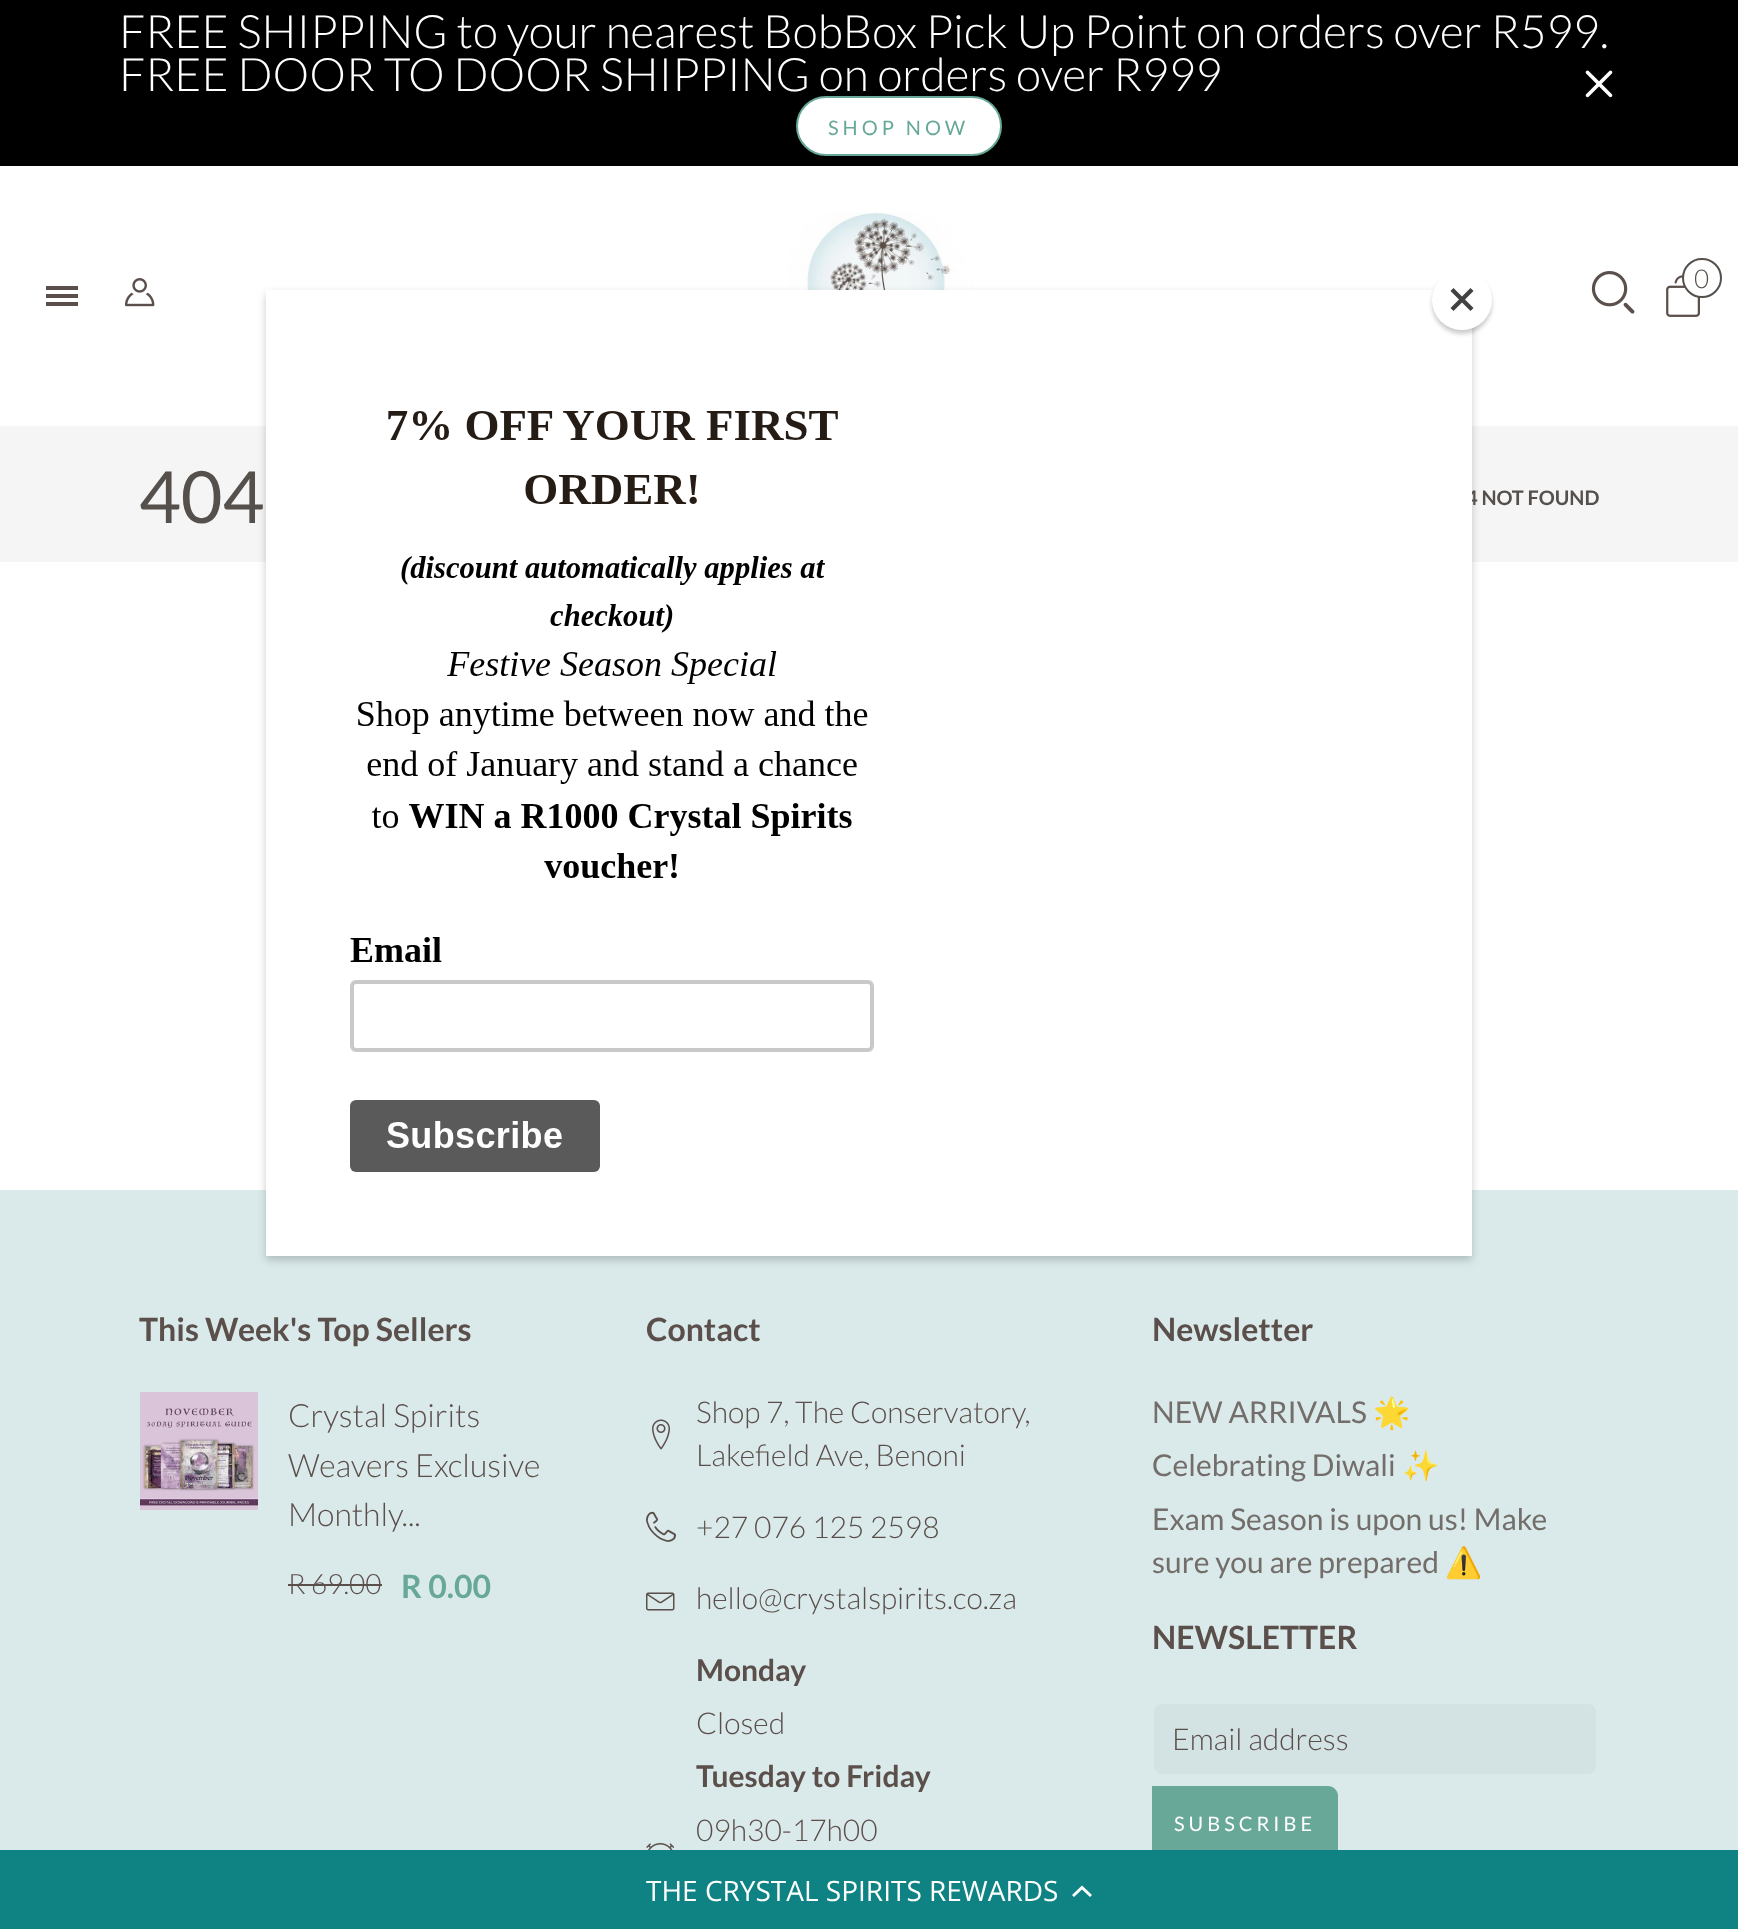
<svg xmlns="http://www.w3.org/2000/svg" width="1738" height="1929">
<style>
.a{font:300 46px Lato;fill:#fff}
.b{font:20px Lato;letter-spacing:4px;fill:#68a899}
.c{font:300 26px Lato;fill:#55504b}
.d{font:72px Lato;fill:#55504b}
.e{font:bold 20px Lato;fill:#55504b}
.f{font:bold 32px Lato;fill:#5b4f4b}
.g{font:300 32px Lato;fill:#5b4f4b}
.h{font:300 28px Lato;fill:#5b4f4b}
.i{font:bold 32px Lato;fill:#68a899}
.j{font:300 30px Lato;fill:#5b4f4b}
.k{font:bold 30px Lato;fill:#5b4f4b}
.l{font:30px Lato;fill:#746e6b}
.m{font:30px Noto Color Emoji;fill:#746e6b}
.n{font:20px Lato;letter-spacing:4px;fill:#fff}
.o{font:28px Open Sans;fill:#fff}
</style>
<rect width="100%" height="100%" fill="#fff"/>
<path fill="#000" d="M0 0h1738v166H0z"/>
<image href="1.png" x="1585" y="70" width="28" height="28"/>
<rect fill="#fff" stroke="#68a899" stroke-width="2" x="797" y="97" width="204" height="58" rx="29"/>
<path fill="#f7f6f6" d="M0 426h1738v2H0z"/>
<image href="5.png" x="770" y="212" width="212" height="78"/>
<path fill="#f5f5f5" d="M0 428h1738v134H0z"/>
<path fill="#daeaeb" d="M0 1190h1738v660H0z"/>
<path fill="#00000033" filter="blur(4px)" d="M266 294h1206v966H266z"/>
<image href="3.png" x="46" y="286" width="32" height="20"/>
<image href="4.png" x="124" y="278" width="31" height="29"/>
<image href="6.png" x="1591" y="271" width="44" height="43"/>
<image href="7.png" x="1666" y="275" width="34" height="42"/>
<circle fill="#fff" stroke="#55504b" stroke-width="2" cx="1702" cy="278" r="19"/>
<image href="8.png" x="140" y="1392" width="118" height="118"/>
<path fill="#5b4f4b" d="M288 1584h94v2H288z"/>
<image href="9.png" x="652" y="1419" width="18" height="31"/>
<image href="10.png" x="646" y="1511" width="30" height="31"/>
<image href="11.png" x="646" y="1592" width="29" height="19"/>
<image href="12.png" x="646" y="1843" width="29" height="7"/>
<rect fill="#d3e2e3" stroke="#daeaeb" stroke-width="2" x="1153" y="1703" width="444" height="72" rx="9"/>
<path fill="#68a899" d="M1152 1786h176c5.5 0 10 4.5 10 10v54c0 5.5-4.5 10-10 10h-176z"/>
<path fill="#0f8383" d="M0 1850h1738v79H0z"/>
<path fill="#fff" d="M1082 1889.5l-8 7.5l-2-2l10-9.5l10 9.5l-2 2z"/>
<text class="a" x="119" y="48">FREE SHIPPING to your nearest BobBox Pick Up Point on orders over R599.</text>
<text class="a" x="119" y="91">FREE DOOR TO DOOR SHIPPING on orders over R999</text>
<text class="b" x="828" y="135">SHOP NOW</text>
<text class="c" x="1694" y="288">0</text>
<text class="d" x="139" y="523">404</text>
<text class="e" x="1466" y="505">4 NOT FOUND</text>
<image href="2.png" x="266" y="290" width="1206" height="966"/>
<rect fill="#00000033" filter="blur(2px)" x="1432" y="274" width="60" height="60" rx="30"/>
<circle fill="#fff" cx="1462" cy="300" r="30"/>
<path fill="#414141" d="M1470.5 288l3 3l-20 20l-3-3z"/>
<path fill="#414141" d="M1450.5 291l3-3l20 20l-3 3z"/>
<text class="f" x="139" y="1341">This Week's Top Sellers</text>
<text class="g" x="288" y="1427">Crystal Spirits</text>
<text class="g" x="288" y="1477">Weavers Exclusive</text>
<text class="g" x="288" y="1526">Monthly...</text>
<text class="h" x="288" y="1594">R 69.00</text>
<text class="i" x="401" y="1598">R 0.00</text>
<text class="f" x="646" y="1341">Contact</text>
<text class="j" x="696" y="1423">Shop 7, The Conservatory,</text>
<text class="j" x="696" y="1466">Lakefield Ave, Benoni</text>
<text class="j" x="696" y="1538">+27 076 125 2598</text>
<text class="j" x="696" y="1609">hello@crystalspirits.co.za</text>
<text class="k" x="696" y="1681">Monday</text>
<text class="j" x="696" y="1734">Closed</text>
<text class="k" x="696" y="1787">Tuesday to Friday</text>
<text class="j" x="696" y="1841">09h30-17h00</text>
<text class="f" x="1152" y="1341">Newsletter</text>
<text class="l" x="1152" y="1423">NEW ARRIVALS</text>
<text class="m" x="1373" y="1423">🌟</text>
<text class="l" x="1152" y="1476">Celebrating Diwali</text>
<text class="m" x="1402" y="1476">✨</text>
<text class="l" x="1152" y="1530">Exam Season is upon us! Make</text>
<text class="l" x="1152" y="1573">sure you are prepared</text>
<text class="m" x="1445" y="1573">⚠️</text>
<text class="f" x="1152" y="1649">NEWSLETTER</text>
<text class="j" x="1172" y="1750">Email address</text>
<text class="n" x="1174" y="1831">SUBSCRIBE</text>
<text class="o" x="646" y="1901">THE CRYSTAL SPIRITS REWARDS</text>
</svg>
